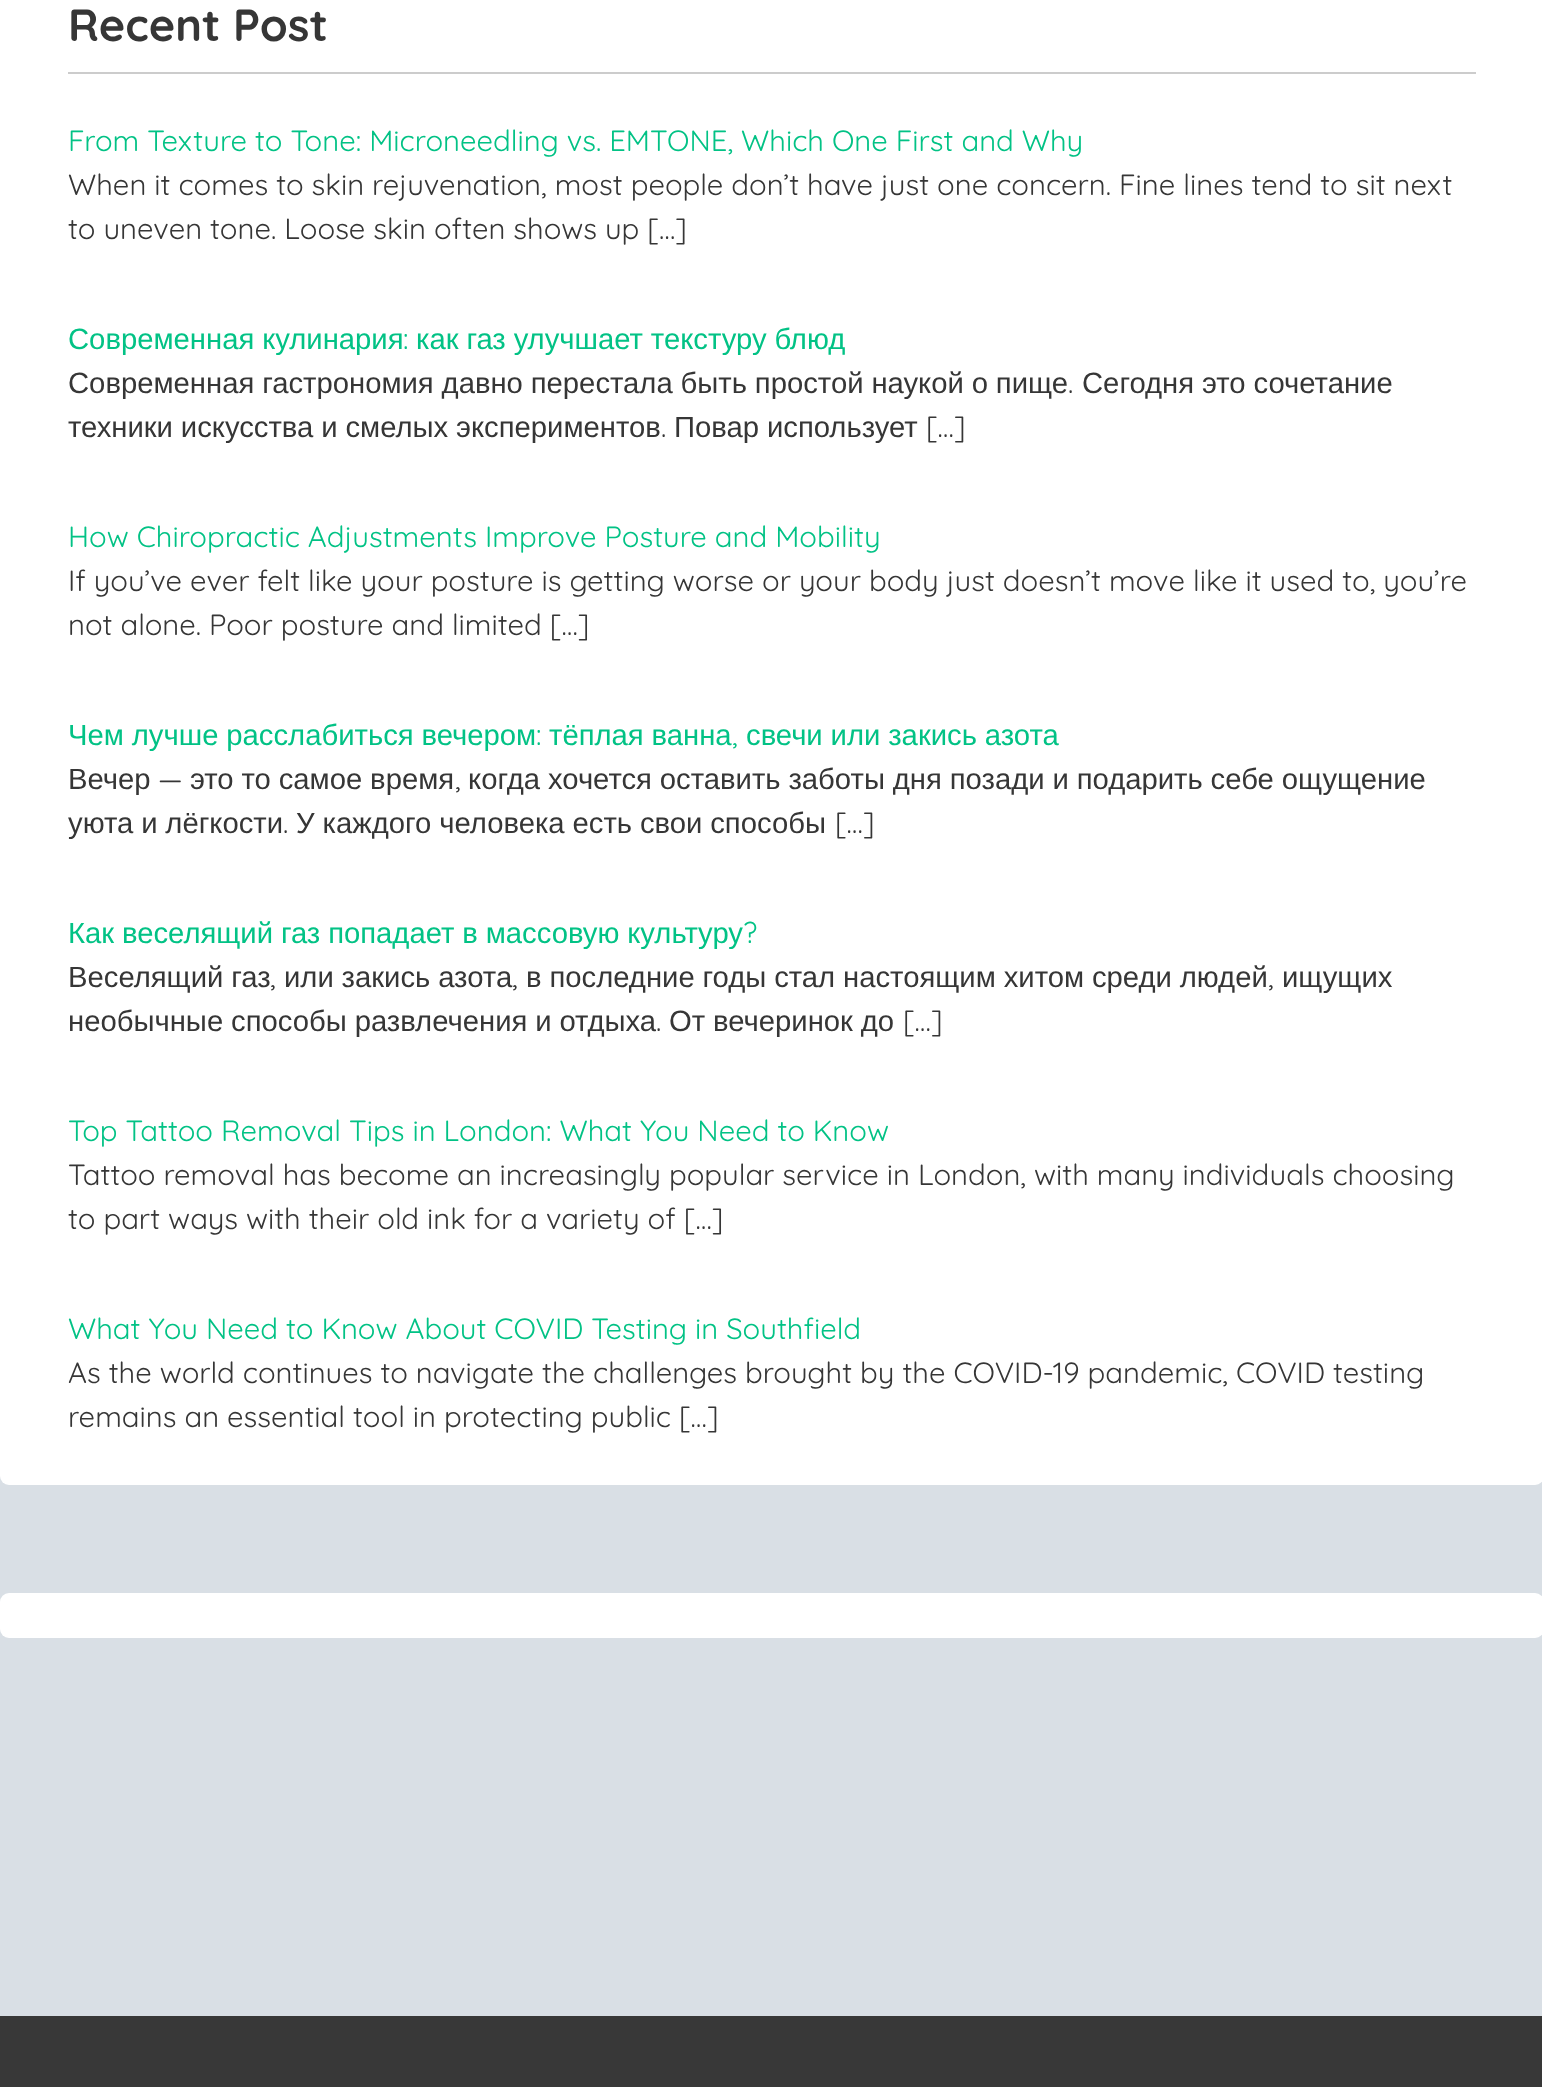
<svg xmlns="http://www.w3.org/2000/svg" width="1542" height="2087">
<style>
.a{font:bold 45px Quicksand;fill:#363636}
.b{font:29.25px Quicksand;fill:#02c285}
.c{font:29.25px Quicksand;fill:#363636}
.d{font:29.25px Liberation Sans;fill:#02c285}
.e{font:29.25px Liberation Sans;fill:#363636}
</style>
<rect width="100%" height="100%" fill="#d9dfe5"/>
<rect fill="#fff" y="-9" width="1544" height="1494" rx="9"/>
<path fill="#ccc" d="M68 72h1408v2H68z"/>
<rect fill="#fff" y="1593" width="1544" height="45" rx="9"/>
<path fill="#383838" d="M0 2016h1542v71H0z"/>
<text class="a" x="68" y="41">Recent Post</text>
<text class="b" x="68" y="151">From Texture to Tone: Microneedling vs. EMTONE, Which One First and Why</text>
<text class="c" x="68" y="195">When it comes to skin rejuvenation, most people don’t have just one concern. Fine lines tend to sit next</text>
<text class="c" x="68" y="239">to uneven tone. Loose skin often shows up […]</text>
<text class="d" x="68" y="349" word-spacing="-0.25">Современная кулинария</text>
<text class="b" x="403" y="349">:</text>
<text class="d" x="416" y="349" word-spacing="-0.25">как газ улучшает текстуру блюд</text>
<text class="e" x="68" y="393" word-spacing="-0.25">Современная гастрономия давно перестала быть простой наукой о пище</text>
<text class="c" x="1068" y="393">.</text>
<text class="e" x="1082" y="393" word-spacing="-0.25">Сегодня это сочетание</text>
<text class="e" x="68" y="437" word-spacing="-0.25">техники искусства и смелых экспериментов</text>
<text class="c" x="661" y="437">.</text>
<text class="e" x="674" y="437" word-spacing="-0.25">Повар использует</text>
<text class="c" x="926" y="437">[…]</text>
<text class="b" x="68" y="547">How Chiropractic Adjustments Improve Posture and Mobility</text>
<text class="c" x="68" y="591">If you’ve ever felt like your posture is getting worse or your body just doesn’t move like it used to, you’re</text>
<text class="c" x="68" y="635">not alone. Poor posture and limited […]</text>
<text class="d" x="68" y="745" word-spacing="-0.25">Чем лучше расслабиться вечером</text>
<text class="b" x="536" y="745">:</text>
<text class="d" x="549" y="745" word-spacing="-0.25">тёплая ванна</text>
<text class="b" x="732" y="745">,</text>
<text class="d" x="746" y="745" word-spacing="-0.25">свечи или закись азота</text>
<text class="e" x="68" y="789">Вечер</text>
<text class="c" x="158" y="789">—</text>
<text class="e" x="190" y="789" word-spacing="-0.25">это то самое время</text>
<text class="e" x="468" y="789" word-spacing="-0.25">когда хочется оставить заботы дня позади и подарить себе ощущение</text>
<text class="c" x="455" y="789">,</text>
<text class="e" x="68" y="833" word-spacing="-0.25">уюта и лёгкости</text>
<text class="c" x="283" y="833">.</text>
<text class="e" x="296" y="833" word-spacing="-0.25">У каждого человека есть свои способы</text>
<text class="c" x="835" y="833">[…]</text>
<text class="d" x="68" y="943" word-spacing="-0.25">Как веселящий газ попадает в массовую культуру</text>
<text class="b" x="743" y="943">?</text>
<text class="e" x="68" y="987" word-spacing="-0.25">Веселящий газ</text>
<text class="c" x="270" y="987">,</text>
<text class="e" x="284" y="987" word-spacing="-0.25">или закись азота</text>
<text class="c" x="512" y="987">,</text>
<text class="e" x="526" y="987" word-spacing="-0.25">в последние годы стал настоящим хитом среди людей</text>
<text class="c" x="1268" y="987">,</text>
<text class="e" x="1282" y="987">ищущих</text>
<text class="e" x="68" y="1031" word-spacing="-0.25">необычные способы развлечения и отдыха</text>
<text class="c" x="656" y="1031">.</text>
<text class="e" x="669" y="1031" word-spacing="-0.25">От вечеринок до</text>
<text class="c" x="903" y="1031">[…]</text>
<text class="b" x="68" y="1141">Top Tattoo Removal Tips in London: What You Need to Know</text>
<text class="c" x="68" y="1185">Tattoo removal has become an increasingly popular service in London, with many individuals choosing</text>
<text class="c" x="68" y="1229">to part ways with their old ink for a variety of […]</text>
<text class="b" x="68" y="1339">What You Need to Know About COVID Testing in Southfield</text>
<text class="c" x="68" y="1383">As the world continues to navigate the challenges brought by the COVID-19 pandemic, COVID testing</text>
<text class="c" x="68" y="1427">remains an essential tool in protecting public […]</text>
</svg>
